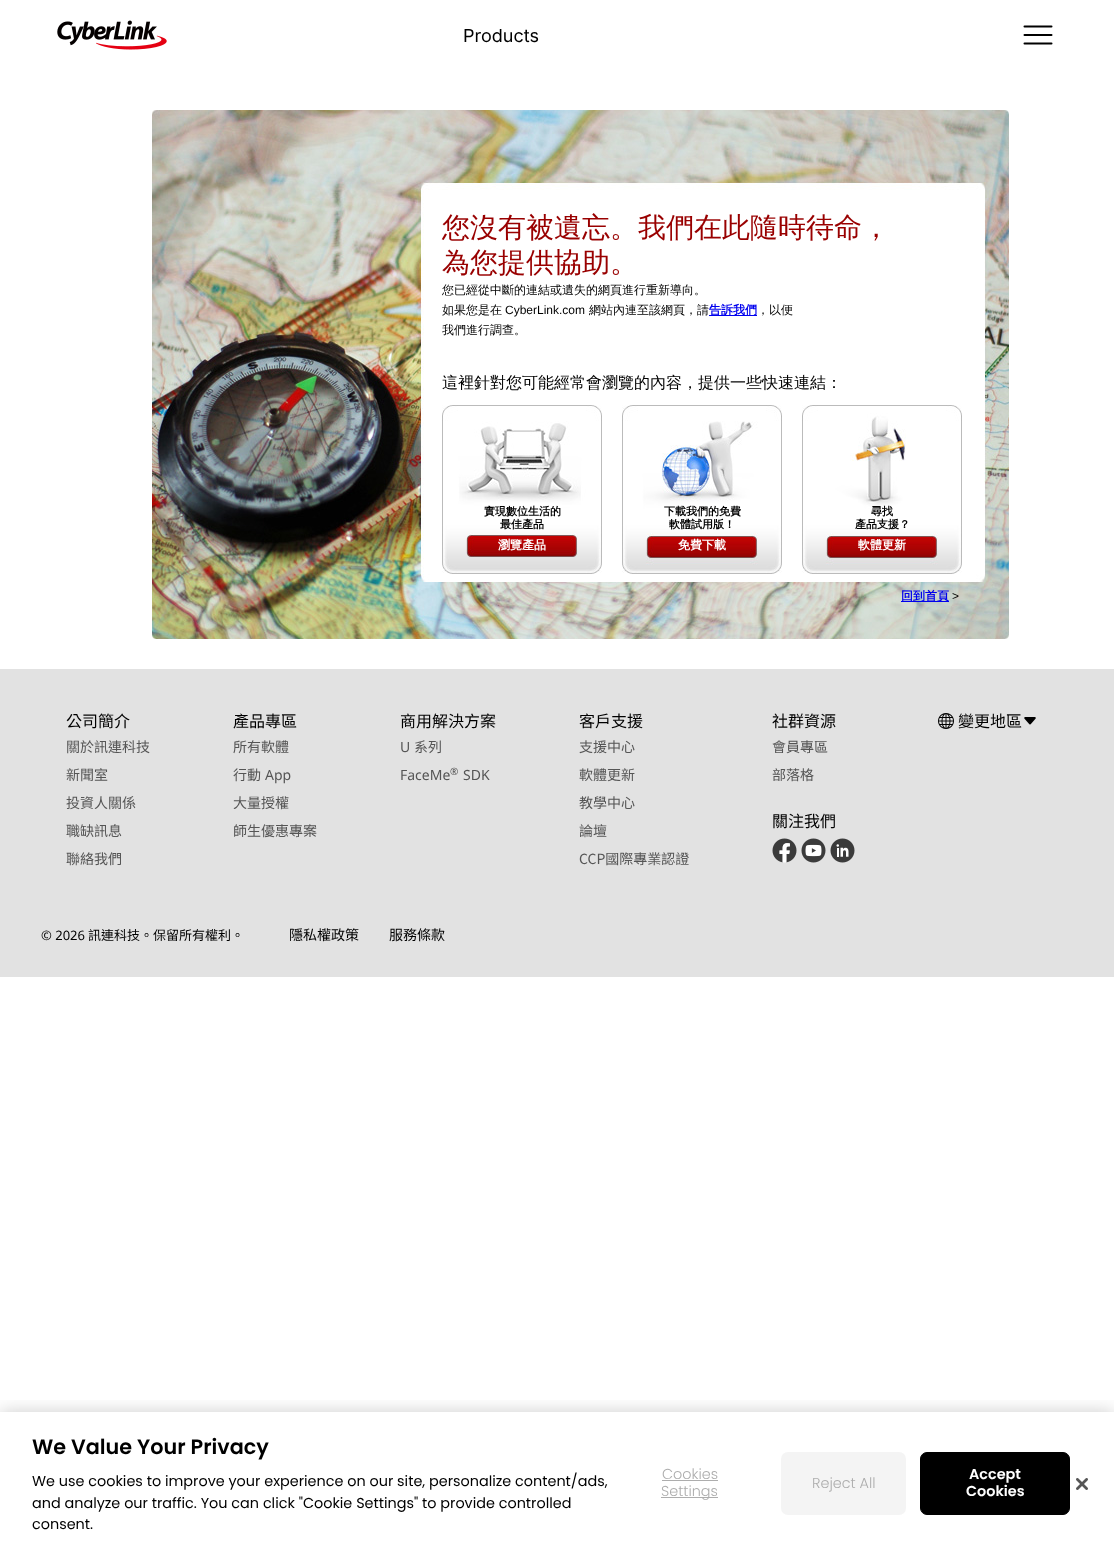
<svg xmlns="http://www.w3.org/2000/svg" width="1114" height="1556">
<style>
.a{font:18px Inter;fill:#000}
.b{font:500 28px WenQuanYi Zen Hei;fill:#900}
.c{font:500 12px WenQuanYi Zen Hei;fill:#000}
.d{font:12px Liberation Sans;fill:#000}
.e{font:bold 12px WenQuanYi Zen Hei;fill:#00e}
.f{font:500 16px WenQuanYi Zen Hei;fill:#000}
.g{font:bold 11px WenQuanYi Zen Hei;fill:#000}
.h{font:bold 12px WenQuanYi Zen Hei;fill:#fff}
.i{font:16px Noto Sans TC;fill:#000}
.j{font:14px Noto Sans TC;fill:#555}
.k{font:14px Noto Sans;fill:#555}
.l{font:10px Noto Sans;fill:#555}
.m{font:13px Noto Sans;fill:#000}
.n{font:13px Noto Sans TC;fill:#000}
.o{font:14px Noto Sans TC;fill:#000}
.p{font:600 20.75px Poppins;fill:#000}
.q{font:14.4px Poppins;fill:#000}
.r{font:300 14.4px Poppins;fill:#adadad}
.s{font:600 14.4px Poppins;fill:#fff}
</style>
<defs>
<clipPath id="clip1"><path d="M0 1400h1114v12H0z"/></clipPath>
</defs>
<rect width="100%" height="100%" fill="#fff"/>
<image href="1.png" x="57" y="20" width="110" height="30"/>
<path fill="none" stroke="#000" stroke-width="2" stroke-linecap="round" d="M1024.5 26.5h27m-27 8.5h27m-27 8.5h27"/>
<image href="2.png" x="152" y="110" width="857" height="529"/>
<path fill="#00e" d="M709 315h48v1H709z"/>
<image href="3.png" x="442" y="405" width="160" height="169"/>
<image href="4.png" x="622" y="405" width="160" height="169"/>
<image href="5.png" x="802" y="405" width="160" height="169"/>
<path fill="#00e" d="M901 601h48v1H901z"/>
<path fill="#e2e2e2" d="M0 669h1114v308H0z"/>
<image href="6.png" x="772" y="838" width="25" height="25"/>
<image href="7.png" x="801" y="838" width="25" height="25"/>
<image href="8.png" x="830" y="838" width="25" height="25"/>
<image href="9.png" x="938" y="713" width="16" height="16"/>
<image href="10.png" x="1024" y="717" width="12" height="8"/>
<g clip-path="url(#clip1)">
<path fill="#00000033" filter="blur(9px)" d="M0 1412h1114v144H0z"/>
</g>
<path fill="#adadad" d="M662 1480h56v1H662z"/>
<path fill="#adadad" d="M661 1497h57v1H661z"/>
<rect fill="#f4f4f4" x="781" y="1452" width="125" height="63" rx="7"/>
<rect fill="#000" stroke="#000" x="920.5" y="1452.5" width="149" height="62" rx="6.5"/>
<image href="11.png" x="1076" y="1478" width="12" height="12"/>
<text class="a" x="463" y="42">Products</text>
<text class="b" x="442" y="237">您沒有被遺忘。我們在此隨時待命，</text>
<text class="b" x="442" y="272">為您提供協助。</text>
<text class="c" x="442" y="294">您已經從中斷的連結或遺失的網頁進行重新導向。</text>
<text class="c" x="442" y="314">如果您是在</text>
<text class="d" x="505" y="314">CyberLink.com</text>
<text class="c" x="589" y="314">網站內連至該網頁，請</text>
<text class="e" x="709" y="314">告訴我們</text>
<text class="c" x="757" y="314">，以便</text>
<text class="c" x="442" y="334">我們進行調查。</text>
<text class="f" x="442" y="388">這裡針對您可能經常會瀏覽的內容，提供一些快速連結：</text>
<text class="g" x="484" y="515">實現數位生活的</text>
<text class="g" x="500" y="528">最佳產品</text>
<text class="h" x="498" y="549">瀏覽產品</text>
<text class="g" x="664" y="515">下載我們的免費</text>
<text class="g" x="669" y="528">軟體試用版！</text>
<text class="h" x="678" y="549">免費下載</text>
<text class="g" x="871" y="515">尋找</text>
<text class="g" x="855" y="528">產品支援？</text>
<text class="h" x="858" y="549">軟體更新</text>
<text class="e" x="901" y="600">回到首頁</text>
<text class="d" x="952" y="600">&gt;</text>
<text class="i" x="66" y="727">公司簡介</text>
<text class="j" x="66" y="752">關於訊連科技</text>
<text class="j" x="66" y="780">新聞室</text>
<text class="j" x="66" y="808">投資人關係</text>
<text class="j" x="66" y="836">職缺訊息</text>
<text class="j" x="66" y="864">聯絡我們</text>
<text class="i" x="233" y="727">產品專區</text>
<text class="j" x="233" y="752">所有軟體</text>
<text class="j" x="233" y="780">行動</text>
<text class="k" x="265" y="780">App</text>
<text class="j" x="233" y="808">大量授權</text>
<text class="j" x="233" y="836">師生優惠專案</text>
<text class="i" x="400" y="727">商用解決方案</text>
<text class="k" x="400" y="752">U</text>
<text class="j" x="414" y="752">系列</text>
<text class="k" x="400" y="780">FaceMe</text>
<text class="l" x="450" y="775">®</text>
<text class="k" x="463" y="780">SDK</text>
<text class="i" x="579" y="727">客戶支援</text>
<text class="j" x="579" y="752">支援中心</text>
<text class="j" x="579" y="780">軟體更新</text>
<text class="j" x="579" y="808">教學中心</text>
<text class="j" x="579" y="836">論壇</text>
<text class="j" x="579" y="864">CCP國際專業認證</text>
<text class="i" x="772" y="727">社群資源</text>
<text class="j" x="772" y="752">會員專區</text>
<text class="j" x="772" y="780">部落格</text>
<text class="i" x="772" y="827">關注我們</text>
<text class="i" x="958" y="727">變更地區</text>
<text class="m" x="41" y="940">© 2026</text>
<text class="n" x="88" y="940">訊連科技。保留所有權利。</text>
<text class="o" x="289" y="940">隱私權政策</text>
<text class="o" x="389" y="940">服務條款</text>
<text class="p" x="32" y="1454">We Value Your Privacy</text>
<text class="q" x="32" y="1486">We use cookies to improve your experience on our site, personalize content/ads,</text>
<text class="q" x="32" y="1508">and analyze our traffic. You can click "Cookie Settings" to provide controlled</text>
<text class="q" x="32" y="1529">consent.</text>
<text class="r" x="662" y="1479">Cookies</text>
<text class="r" x="661" y="1496">Settings</text>
<text class="r" x="812" y="1488">Reject All</text>
<text class="s" x="969" y="1479">Accept</text>
<text class="s" x="966" y="1496">Cookies</text>
</svg>
